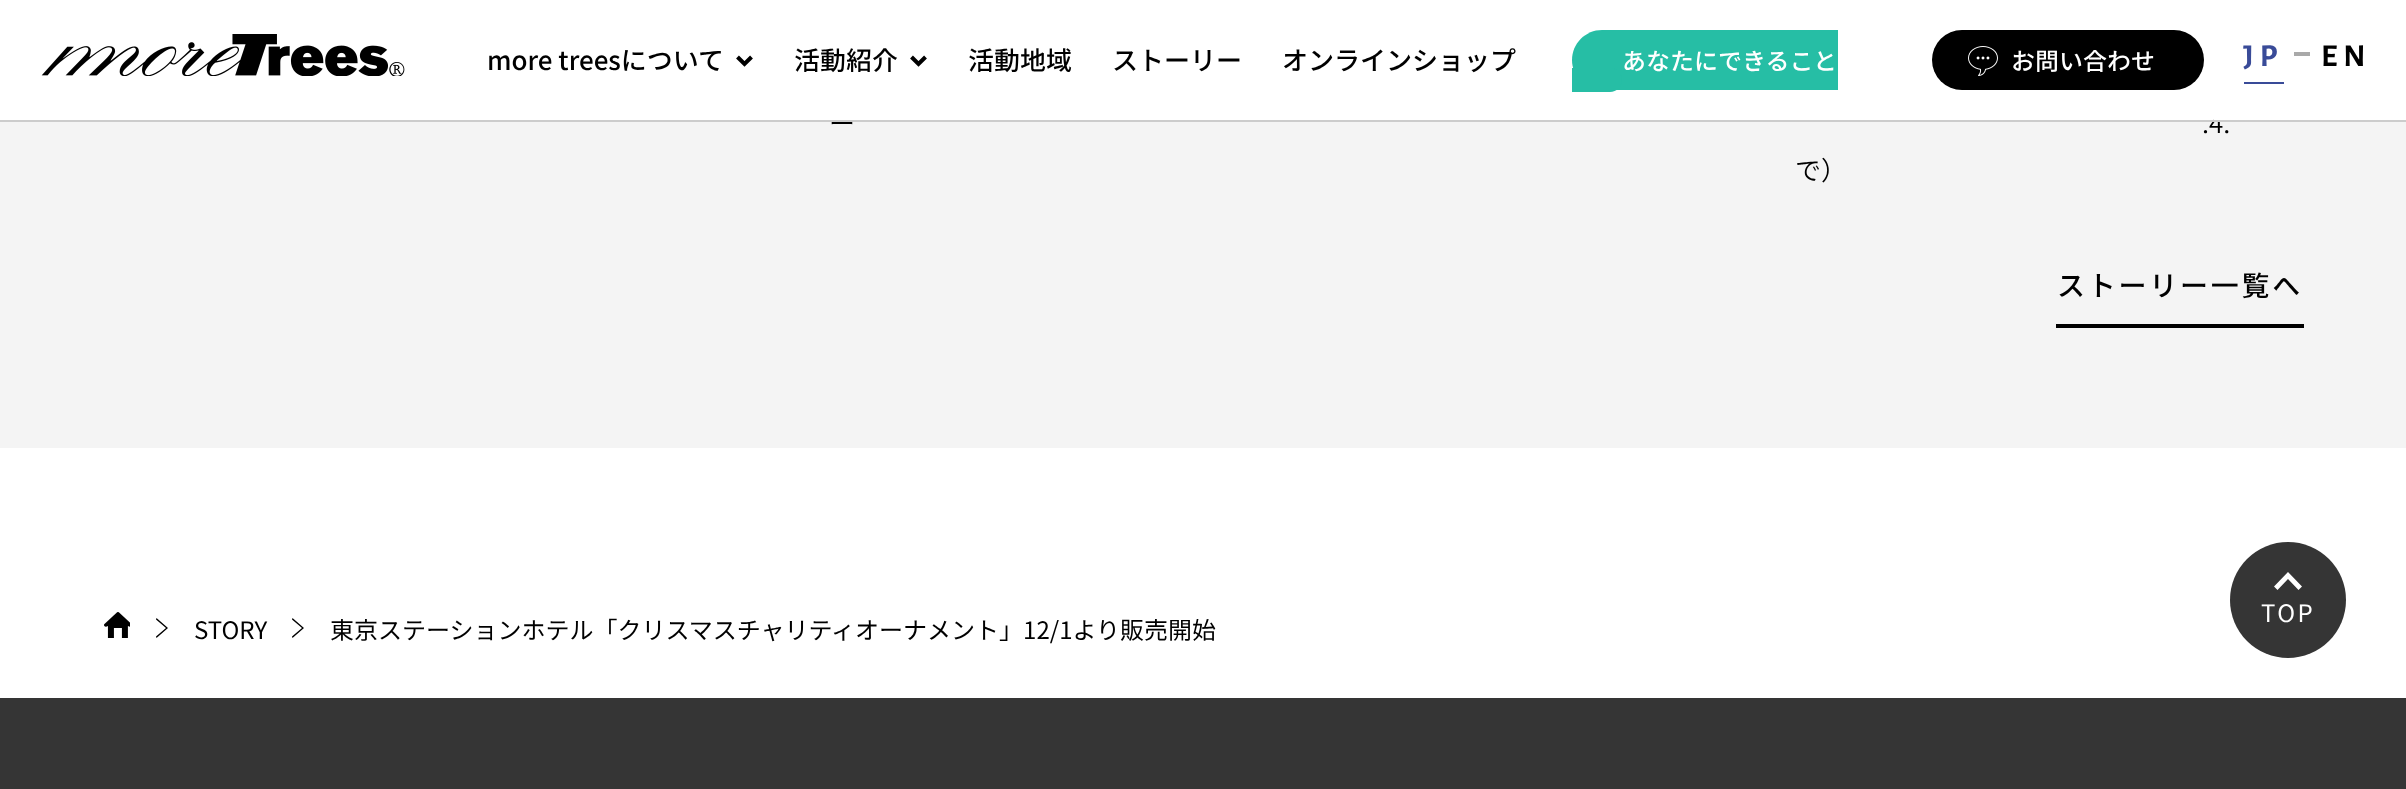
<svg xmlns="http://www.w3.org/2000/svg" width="2406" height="789">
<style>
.a{font:500 26px Noto Sans JP;fill:#000}
.b{font:500 24px Noto Sans JP;fill:#fff}
.c{font:bold 32px Alegreya Sans SC;letter-spacing:6px;fill:#394b98}
.d{font:bold 32px Alegreya Sans SC;letter-spacing:6px;fill:#000}
.e{font:300 26px Noto Sans JP;fill:#000}
.f{font:500 28px Noto Sans JP;letter-spacing:2.75px;fill:#000}
.g{font:24px Noto Sans JP;fill:#000}
.h{font:24px Noto Sans JP;letter-spacing:2.5px;fill:#fff}
</style>
<rect width="100%" height="100%" fill="#fff"/>
<image href="1.png" x="41" y="34" width="364" height="42"/>
<path fill="none" stroke="#000" stroke-width="4" d="M751.5 57l-7 7l-7-7"/>
<path fill="none" stroke="#000" stroke-width="4" d="M925.5 57l-7 7l-7-7"/>
<path fill="#26bea5" d="M1602 30h236v60h-236c-16.5 0-30-13.5-30-30c0-16.5 13.5-30 30-30z"/>
<path fill="#26bea5" d="M1572 68h38c6.5 0 12 5.5 12 12c0 6.5-5.5 12-12 12h-38z"/>
<rect fill="#000" x="1932" y="30" width="272" height="60" rx="30"/>
<image href="2.png" x="1968" y="46" width="30" height="30"/>
<path fill="#394b98" d="M2244 82h40v2H2244z"/>
<path fill="#a9a9a9" d="M2294 52h16v4H2294z"/>
<path fill="#f4f4f4" d="M0 122h2406v326H0z"/>
<path fill="#000" d="M2056 324h248v4H2056z"/>
<image href="3.png" x="104" y="612" width="26" height="26"/>
<path fill="#000" fill-rule="evenodd" d="M156.5 618l-.5 1.5l10 8.5l-10 8.5l.5 1.5l11.5-10z"/>
<path fill="#000" fill-rule="evenodd" d="M292.5 618l-.5 1.5l10 8.5l-10 8.5l.5 1.5l11.5-10z"/>
<circle fill="#353535" cx="2288" cy="600" r="58"/>
<path fill="#fff" fill-rule="evenodd" d="M2274 586.5l3.5 3.5l10.5-11l10.5 11l3.5-3.5l-14-14.5z"/>
<path fill="#353535" d="M0 698h2406v91H0z"/>
<text class="a" x="487" y="70">more treesについて</text>
<text class="a" x="794" y="70">活動紹介</text>
<text class="a" x="968" y="70">活動地域</text>
<text class="a" x="1112" y="70">ストーリー</text>
<text class="a" x="1282" y="70">オンラインショップ</text>
<text class="b" x="1622" y="70">あなたにできること</text>
<text class="b" x="2011" y="70">お問い合わせ</text>
<text class="c" x="2243" y="66">JP</text>
<text class="d" x="2321" y="66">EN</text>
<text class="e" x="829" y="133">ー</text>
<text class="e" x="2202" y="133">.4.</text>
<path fill="#ccc" d="M0 120h2406v2H0z"/>
<path fill="#fff" d="M2214 114h7v6H2214z"/>
<text class="e" x="1795" y="180">で）</text>
<text class="f" x="2057" y="296">ストーリー一覧へ</text>
<text class="g" x="194" y="639">STORY</text>
<text class="g" x="330" y="639">東京ステーションホテル「クリスマスチャリティオーナメント」12/1より販売開始</text>
<text class="h" x="2261" y="622">TOP</text>
</svg>
